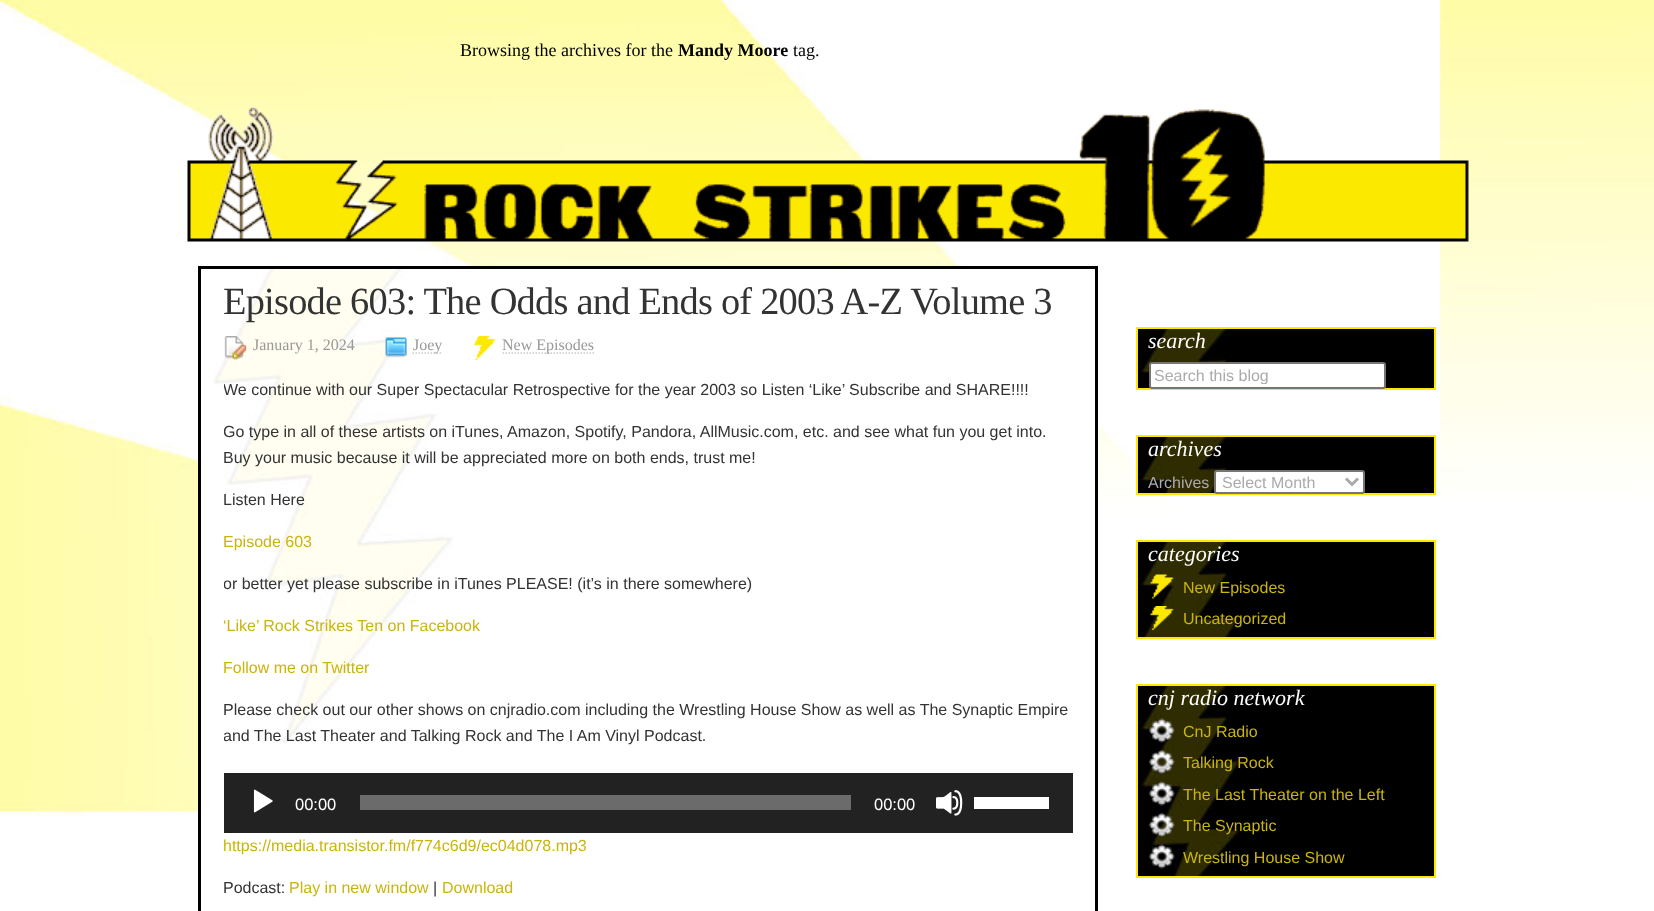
<svg xmlns="http://www.w3.org/2000/svg" width="1654" height="911">
<style>
.a{font:18px Liberation Serif;fill:#000}
.b{font:bold 18px Liberation Serif;fill:#000}
.c{font:38.4px Liberation Serif;letter-spacing:-0.77px;fill:#333}
.d{font:16px Liberation Serif;fill:#999}
.e{font:16px Liberation Sans;fill:#333}
.f{font:16px Liberation Sans;fill:#c9b50d}
.g{font:16.5px Liberation Sans;fill:#fff}
.h{font:italic 22px Liberation Serif;fill:#fff}
.i{font:16px Liberation Sans;fill:#aaa}
</style>
<defs>
<clipPath id="clip1"><path d="M224 360h849v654H224z"/></clipPath>
<clipPath id="clip2"><path d="M1155 366h225v18H1155z"/></clipPath>
</defs>
<rect width="100%" height="100%" fill="#fff"/>
<image href="1.png" x="0" y="0" width="1654" height="816"/>
<image href="2.png" x="187" y="106" width="1282" height="136"/>
<path fill="#fff" d="M201 269h894v547H201z"/>
<image href="3.png" x="213" y="269" width="240" height="475"/>
<path fill="none" stroke="#000" stroke-width="3" d="M199.5 267.5h897v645H199.5z"/>
<image href="4.png" x="224" y="336" width="23" height="24"/>
<image href="5.png" x="385" y="337" width="22" height="21"/>
<path fill="none" stroke="#ccc" stroke-width="1.5" stroke-dasharray="1.5 1.5" d="M412.5 353h30"/>
<image href="6.png" x="473" y="336" width="23" height="24"/>
<path fill="none" stroke="#ccc" stroke-width="1.5" stroke-dasharray="1.5 1.5" d="M502.5 353h91.5"/>
<path fill="#222" d="M224 773h849v60H224z"/>
<image href="7.png" x="253" y="789" width="20" height="24"/>
<path fill="#6b6b6b" d="M360 795h491v15H360z"/>
<image href="8.png" x="936" y="790" width="27" height="26"/>
<path fill="#fff" d="M974 797h75v12H974z"/>
<path fill="#000" d="M1230 329h204v59H1230z"/>
<image href="9.png" x="1138" y="329" width="92" height="59"/>
<path fill="none" stroke="#fde803" stroke-width="2" d="M1137 328h298v61H1137z"/>
<rect fill="#fff" stroke="#767676" stroke-width="2" x="1150" y="363" width="235" height="25" rx="2"/>
<path fill="#000" d="M1230 437h204v56H1230z"/>
<image href="10.png" x="1138" y="437" width="92" height="56"/>
<path fill="none" stroke="#fde803" stroke-width="2" d="M1137 436h298v58H1137z"/>
<rect fill="#fff" stroke="#767676" stroke-width="2" x="1215" y="471" width="149" height="22" rx="2"/>
<path fill="none" stroke="#aaa" stroke-width="3" d="M1346 478.5l6 6l6-6"/>
<path fill="#000" d="M1245 542h189v95H1245z"/>
<image href="11.png" x="1138" y="542" width="107" height="95"/>
<path fill="none" stroke="#fde803" stroke-width="2" d="M1137 541h298v97H1137z"/>
<image href="12.png" x="1150" y="574" width="24" height="25"/>
<image href="13.png" x="1150" y="606" width="24" height="24"/>
<path fill="#000" d="M1245 686h189v190H1245z"/>
<image href="14.png" x="1138" y="686" width="107" height="190"/>
<path fill="none" stroke="#fde803" stroke-width="2" d="M1137 685h298v192H1137z"/>
<image href="15.png" x="1149" y="718" width="26" height="25"/>
<image href="16.png" x="1149" y="750" width="26" height="24"/>
<image href="17.png" x="1149" y="781" width="26" height="25"/>
<image href="18.png" x="1149" y="813" width="26" height="24"/>
<image href="19.png" x="1149" y="844" width="26" height="25"/>
<text class="a" x="460" y="56">Browsing the archives for the</text>
<text class="b" x="678" y="56">Mandy Moore</text>
<text class="a" x="793" y="56">tag.</text>
<text class="c" x="223" y="314">Episode 603: The Odds and Ends of 2003 A-Z Volume 3</text>
<text class="d" x="253" y="350">January 1, 2024</text>
<text class="d" x="413" y="350">Joey</text>
<text class="d" x="502" y="350">New Episodes</text>
<g clip-path="url(#clip1)">
<text class="e" x="223" y="395">We continue with our Super Spectacular Retrospective for the year 2003 so Listen ‘Like’ Subscribe and SHARE!!!!</text>
<text class="e" x="223" y="437">Go type in all of these artists on iTunes, Amazon, Spotify, Pandora, AllMusic.com, etc. and see what fun you get into.</text>
</g>
<text class="e" x="223" y="463">Buy your music because it will be appreciated more on both ends, trust me!</text>
<text class="e" x="223" y="505">Listen Here</text>
<text class="f" x="223" y="547">Episode 603</text>
<g clip-path="url(#clip1)">
<text class="e" x="223" y="589">or better yet please subscribe in iTunes PLEASE! (it’s in there somewhere)</text>
<text class="f" x="223" y="631">‘Like’ Rock Strikes Ten on Facebook</text>
</g>
<text class="f" x="223" y="673">Follow me on Twitter</text>
<text class="e" x="223" y="715">Please check out our other shows on cnjradio.com including the Wrestling House Show as well as The Synaptic Empire</text>
<g clip-path="url(#clip1)">
<text class="e" x="223" y="741">and The Last Theater and Talking Rock and The I Am Vinyl Podcast.</text>
</g>
<text class="g" x="295" y="810">00:00</text>
<text class="g" x="874" y="810">00:00</text>
<g clip-path="url(#clip1)">
<text class="f" x="223" y="851">https://media.transistor.fm/f774c6d9/ec04d078.mp3</text>
</g>
<text class="e" x="223" y="893">Podcast:</text>
<text class="f" x="289" y="893">Play in new window</text>
<text class="e" x="433" y="893">|</text>
<text class="f" x="442" y="893">Download</text>
<text class="h" x="1148" y="348">search</text>
<g clip-path="url(#clip2)">
<text class="i" x="1154" y="381">Search this blog</text>
</g>
<text class="h" x="1148" y="456">archives</text>
<text class="i" x="1148" y="488">Archives</text>
<text class="i" x="1222" y="488">Select Month</text>
<text class="h" x="1148" y="561">categories</text>
<text class="f" x="1183" y="593">New Episodes</text>
<text class="f" x="1183" y="624">Uncategorized</text>
<text class="h" x="1148" y="705">cnj radio network</text>
<text class="f" x="1183" y="737">CnJ Radio</text>
<text class="f" x="1183" y="768">Talking Rock</text>
<text class="f" x="1183" y="800">The Last Theater on the Left</text>
<text class="f" x="1183" y="831">The Synaptic</text>
<text class="f" x="1183" y="863">Wrestling House Show</text>
</svg>
